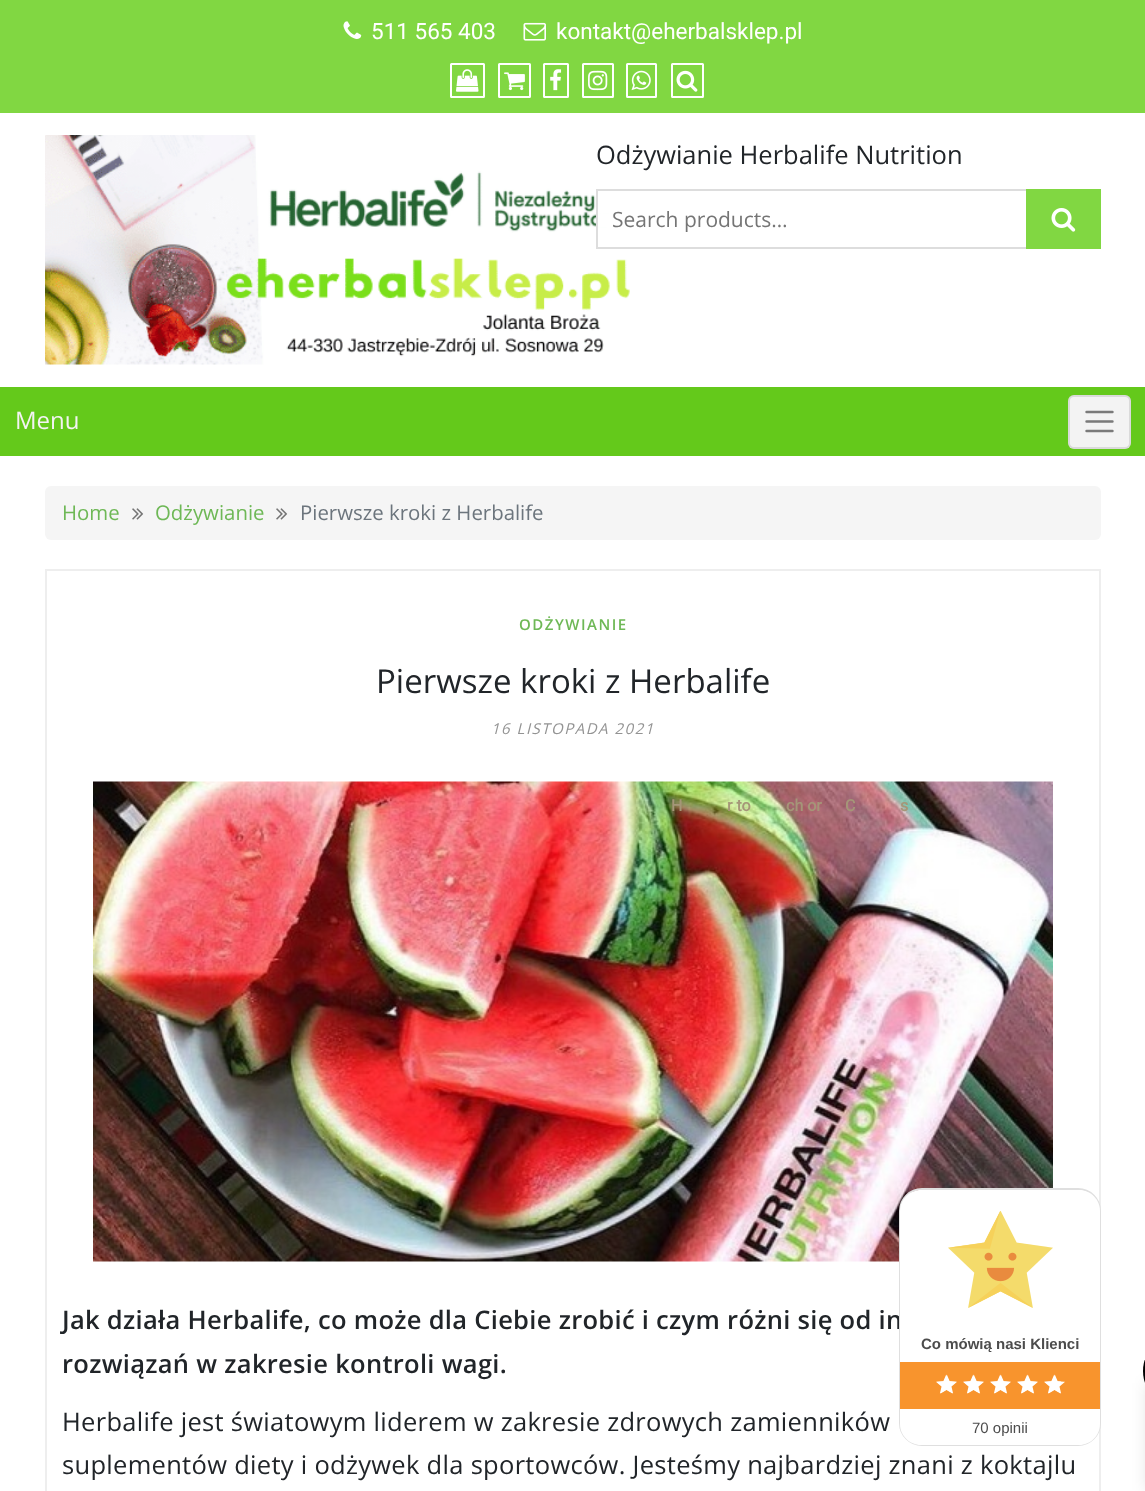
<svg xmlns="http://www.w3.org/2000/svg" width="1145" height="1491">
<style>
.a{font:22.5px Roboto;fill:#fff}
.b{font:bold 16px Roboto;fill:#a59678}
.c{font:25.5px Open Sans;fill:#212529}
.d{font:21px Open Sans;fill:#757575}
.e{font:24px Open Sans;fill:#f3f3f3}
.f{font:20.4px Open Sans;fill:#6eb856}
.g{font:20.4px Open Sans;fill:#6c757d}
.h{font:600 15px Open Sans;letter-spacing:1.5px;fill:#6eb856}
.i{font:33px Open Sans;fill:#212529}
.j{font:italic 15px Open Sans;letter-spacing:1.5px;fill:#939393}
.k{font:600 25.5px Open Sans;letter-spacing:0.3px;fill:#212529}
.l{font:25.5px Open Sans;letter-spacing:0.3px;fill:#212529}
.m{font:bold 15px Liberation Sans;fill:#4c4c4c}
.n{font:15px Liberation Sans;fill:#4c4c4c}
</style>
<rect width="100%" height="100%" fill="#fff"/>
<path fill="#81d742" d="M0 0h1145v113H0z"/>
<image href="1.png" x="343" y="21" width="19" height="18"/>
<image href="2.png" x="523" y="22" width="23" height="19"/>
<rect fill="none" stroke="#fff" stroke-width="2" x="451" y="64" width="33" height="33" rx="0.5"/>
<image href="3.png" x="456" y="69" width="23" height="23"/>
<rect fill="none" stroke="#fff" stroke-width="2" x="499" y="64" width="31" height="33" rx="0.5"/>
<image href="4.png" x="504" y="72" width="21" height="19"/>
<rect fill="none" stroke="#fff" stroke-width="2" x="544" y="64" width="24" height="33" rx="0.5"/>
<image href="5.png" x="550" y="69" width="12" height="22"/>
<rect fill="none" stroke="#fff" stroke-width="2" x="583" y="64" width="30" height="33" rx="0.5"/>
<image href="6.png" x="588" y="70" width="20" height="21"/>
<rect fill="none" stroke="#fff" stroke-width="2" x="627" y="64" width="29" height="33" rx="0.5"/>
<image href="7.png" x="631" y="70" width="20" height="21"/>
<rect fill="none" stroke="#fff" stroke-width="2" x="672" y="64" width="31" height="33" rx="0.5"/>
<image href="8.png" x="676" y="70" width="22" height="22"/>
<image href="9.png" x="45" y="135" width="585" height="230"/>
<path fill="#fff" d="M598 214h14v13H598z"/>
<path fill="none" stroke="#ddd" stroke-width="2" d="M597 190h503v58H597z"/>
<path fill="#81d742" d="M1026 189h75v60H1026z"/>
<image href="10.png" x="1051" y="208" width="25" height="24"/>
<path fill="#64c91b" d="M0 387h1145v69H0z"/>
<rect fill="#f3f3f3" x="1068" y="395" width="63" height="54" rx="6"/>
<rect fill="none" stroke="#0000001a" stroke-width="2" x="1069" y="396" width="61" height="52" rx="5"/>
<path fill="none" stroke="#7a7a7a" stroke-width="2.4" stroke-linecap="round" d="M1086.5 412h26m-26 9.5h26m-26 9.5h26"/>
<rect fill="#f5f5f5" x="45" y="486" width="1056" height="54" rx="6"/>
<image href="11.png" x="132" y="508" width="12" height="12"/>
<image href="11.png" x="276" y="508" width="12" height="12"/>
<path fill="none" stroke="#eee" stroke-width="2" d="M46 570h1054v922H46z"/>
<image href="12.png" x="93" y="781" width="960" height="481"/>
<path fill="#0000001a" filter="blur(7.5px)" d="M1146 1383h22v107H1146z"/>
<rect fill="#000" x="1143" y="1350" width="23" height="42" rx="21"/>
<text class="a" x="371" y="39">511 565 403</text>
<text class="a" x="556" y="39">kontakt@eherbalsklep.pl</text>
<text class="b" x="671" y="811">H</text>
<text class="b" x="727" y="811">r to</text>
<text class="b" x="786" y="811">ch or</text>
<text class="b" x="845" y="811">C</text>
<text class="b" x="900" y="811">s</text>
<text class="c" x="596" y="164">Odżywianie Herbalife Nutrition</text>
<text class="d" x="612" y="227">Search products…</text>
<text class="e" x="15" y="429">Menu</text>
<text class="f" x="62" y="520">Home</text>
<text class="f" x="155" y="520">Odżywianie</text>
<text class="g" x="300" y="520">Pierwsze kroki z Herbalife</text>
<text class="h" x="519" y="630">ODŻYWIANIE</text>
<text class="i" x="376" y="693">Pierwsze kroki z Herbalife</text>
<text class="j" x="491" y="734">16 LISTOPADA 2021</text>
<text class="k" x="62" y="1329">Jak działa Herbalife, co może dla Ciebie zrobić i czym różni się od in</text>
<text class="k" x="62" y="1373">rozwiązań w zakresie kontroli wagi.</text>
<text class="l" x="62" y="1431">Herbalife jest światowym liderem w zakresie zdrowych zamienników</text>
<text class="l" x="62" y="1474">suplementów diety i odżywek dla sportowców. Jesteśmy najbardziej znani z koktajlu</text>
<rect fill="none" stroke="#dfdfdf" stroke-width="2" x="900" y="1189" width="200" height="256" rx="22"/>
<path fill="#fff" d="M921 1190h158c11.5 0 21 9.5 21 21v151h-200v-151c0-11.5 9.5-21 21-21z"/>
<path fill="#f8942d" d="M900 1362h200v47H900z"/>
<path fill="#fff" d="M900 1409h200v15c0 11.5-9.5 21-21 21h-158c-11.5 0-21-9.5-21-21z"/>
<image href="13.png" x="948" y="1211" width="105" height="97"/>
<text class="m" x="921" y="1349">Co mówią nasi Klienci</text>
<image href="14.png" x="936" y="1374" width="21" height="20"/>
<image href="15.png" x="936" y="1374" width="21" height="20"/>
<image href="14.png" x="963" y="1374" width="21" height="20"/>
<image href="15.png" x="963" y="1374" width="21" height="20"/>
<image href="14.png" x="990" y="1374" width="21" height="20"/>
<image href="15.png" x="990" y="1374" width="21" height="20"/>
<image href="14.png" x="1017" y="1374" width="21" height="20"/>
<image href="15.png" x="1017" y="1374" width="21" height="20"/>
<image href="14.png" x="1044" y="1374" width="21" height="20"/>
<image href="16.png" x="1044" y="1374" width="17" height="20"/>
<text class="n" x="972" y="1433">70 opinii</text>
</svg>
